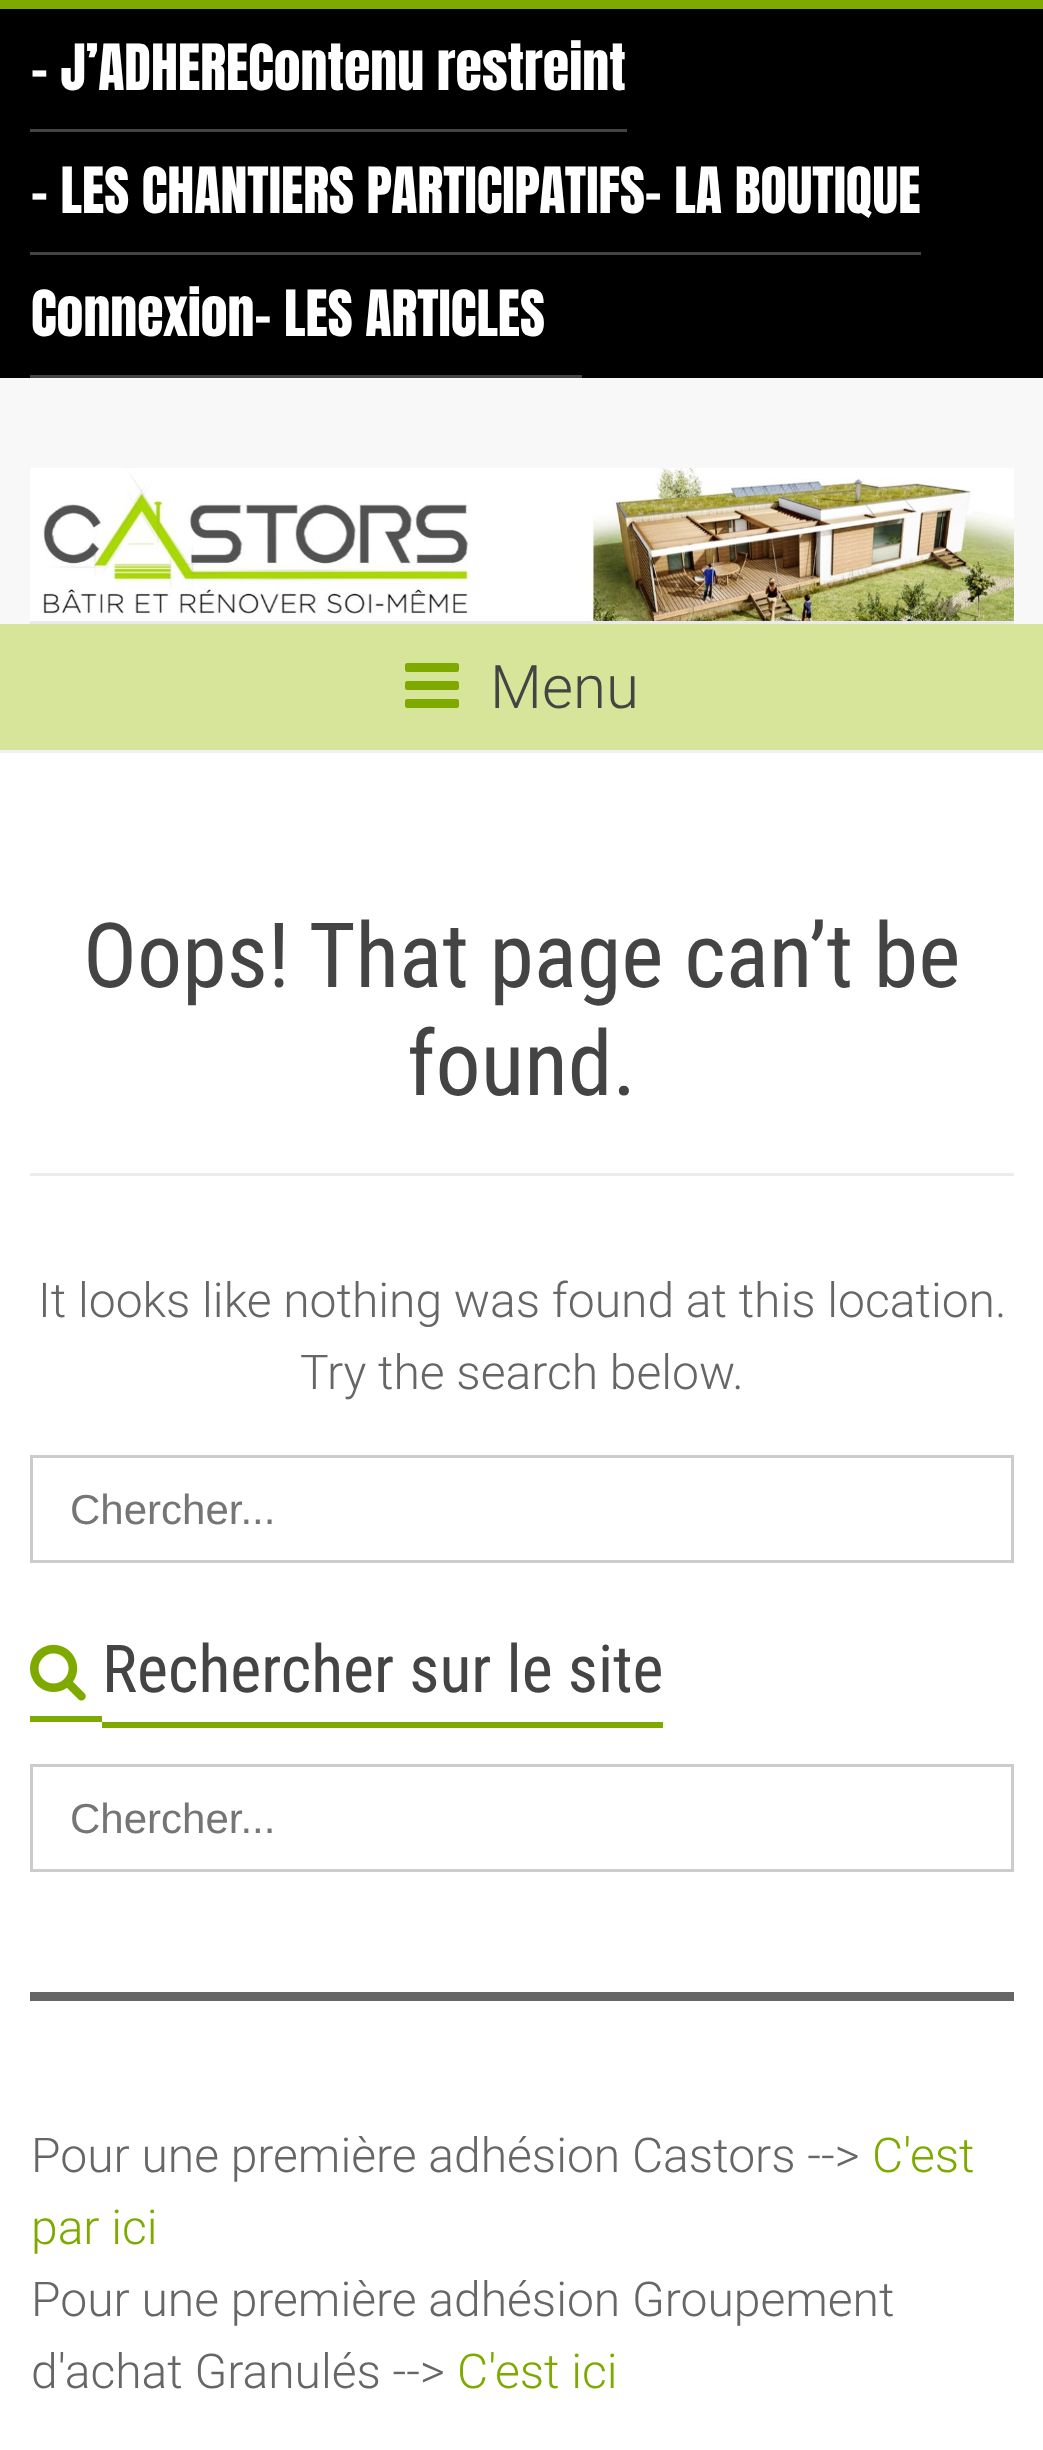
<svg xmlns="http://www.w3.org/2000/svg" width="1043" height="2450">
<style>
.a{font:54px Anton;fill:#fff}
.b{font:300 60px Roboto;fill:#444}
.c{font:90px Roboto Condensed;fill:#444}
.d{font:300 48px Roboto;fill:#666}
.e{font:42px Liberation Sans;fill:#757575}
.f{font:66px Roboto Condensed;fill:#444}
.g{font:300 48px Roboto;fill:#7eaa00}
</style>
<rect width="100%" height="100%" fill="#fff"/>
<path fill="#7eaa00" d="M0 0h1043v9H0z"/>
<path fill="#000" d="M0 9h1043v369H0z"/>
<path fill="#444" d="M30 129h597v3H30z"/>
<path fill="#444" d="M30 252h891v3H30z"/>
<path fill="#444" d="M30 375h552v3H30z"/>
<path fill="#f8f8f8" d="M0 378h1043v246H0z"/>
<path fill="#f2f2f2" d="M0 750h1043v3H0z"/>
<image href="1.png" x="30" y="468" width="984" height="153"/>
<path fill="#eaeaea" d="M30 621h984v3H30z"/>
<path fill="#d6e599" d="M0 624h1043v126H0z"/>
<image href="2.png" x="405" y="663" width="54" height="45"/>
<path fill="#ececec" d="M30 1173h984v3H30z"/>
<path fill="none" stroke="#ccc" stroke-width="3" d="M31.5 1456.5h981v105H31.5z"/>
<image href="3.png" x="30" y="1644" width="56" height="57"/>
<path fill="#7eaa00" d="M30 1716h72v6H30z"/>
<path fill="#7eaa00" d="M102 1722h561v6H102z"/>
<path fill="none" stroke="#ccc" stroke-width="3" d="M31.5 1765.5h981v105H31.5z"/>
<path fill="#666" d="M30 1992h984v9H30z"/>
<text class="a" x="31" y="90">– J’ADHEREContenu restreint</text>
<text class="a" x="31" y="213">– LES CHANTIERS PARTICIPATIFS– LA BOUTIQUE</text>
<text class="a" x="31" y="336">Connexion– LES ARTICLES</text>
<text class="b" x="490" y="708">Menu</text>
<text class="c" x="83" y="987">Oops! That page can’t be</text>
<text class="c" x="407" y="1095">found.</text>
<text class="d" x="38" y="1317">It looks like nothing was found at this location.</text>
<text class="d" x="300" y="1389">Try the search below.</text>
<text class="e" x="70" y="1524">Chercher...</text>
<text class="f" x="102" y="1692">Rechercher sur le site</text>
<text class="e" x="70" y="1833">Chercher...</text>
<text class="d" x="31" y="2172">Pour une première adhésion Castors --&gt;</text>
<text class="g" x="872" y="2172">C'est</text>
<text class="g" x="31" y="2244">par ici</text>
<text class="d" x="31" y="2316">Pour une première adhésion Groupement</text>
<text class="d" x="31" y="2388">d'achat Granulés --&gt;</text>
<text class="g" x="457" y="2388">C'est ici</text>
</svg>
